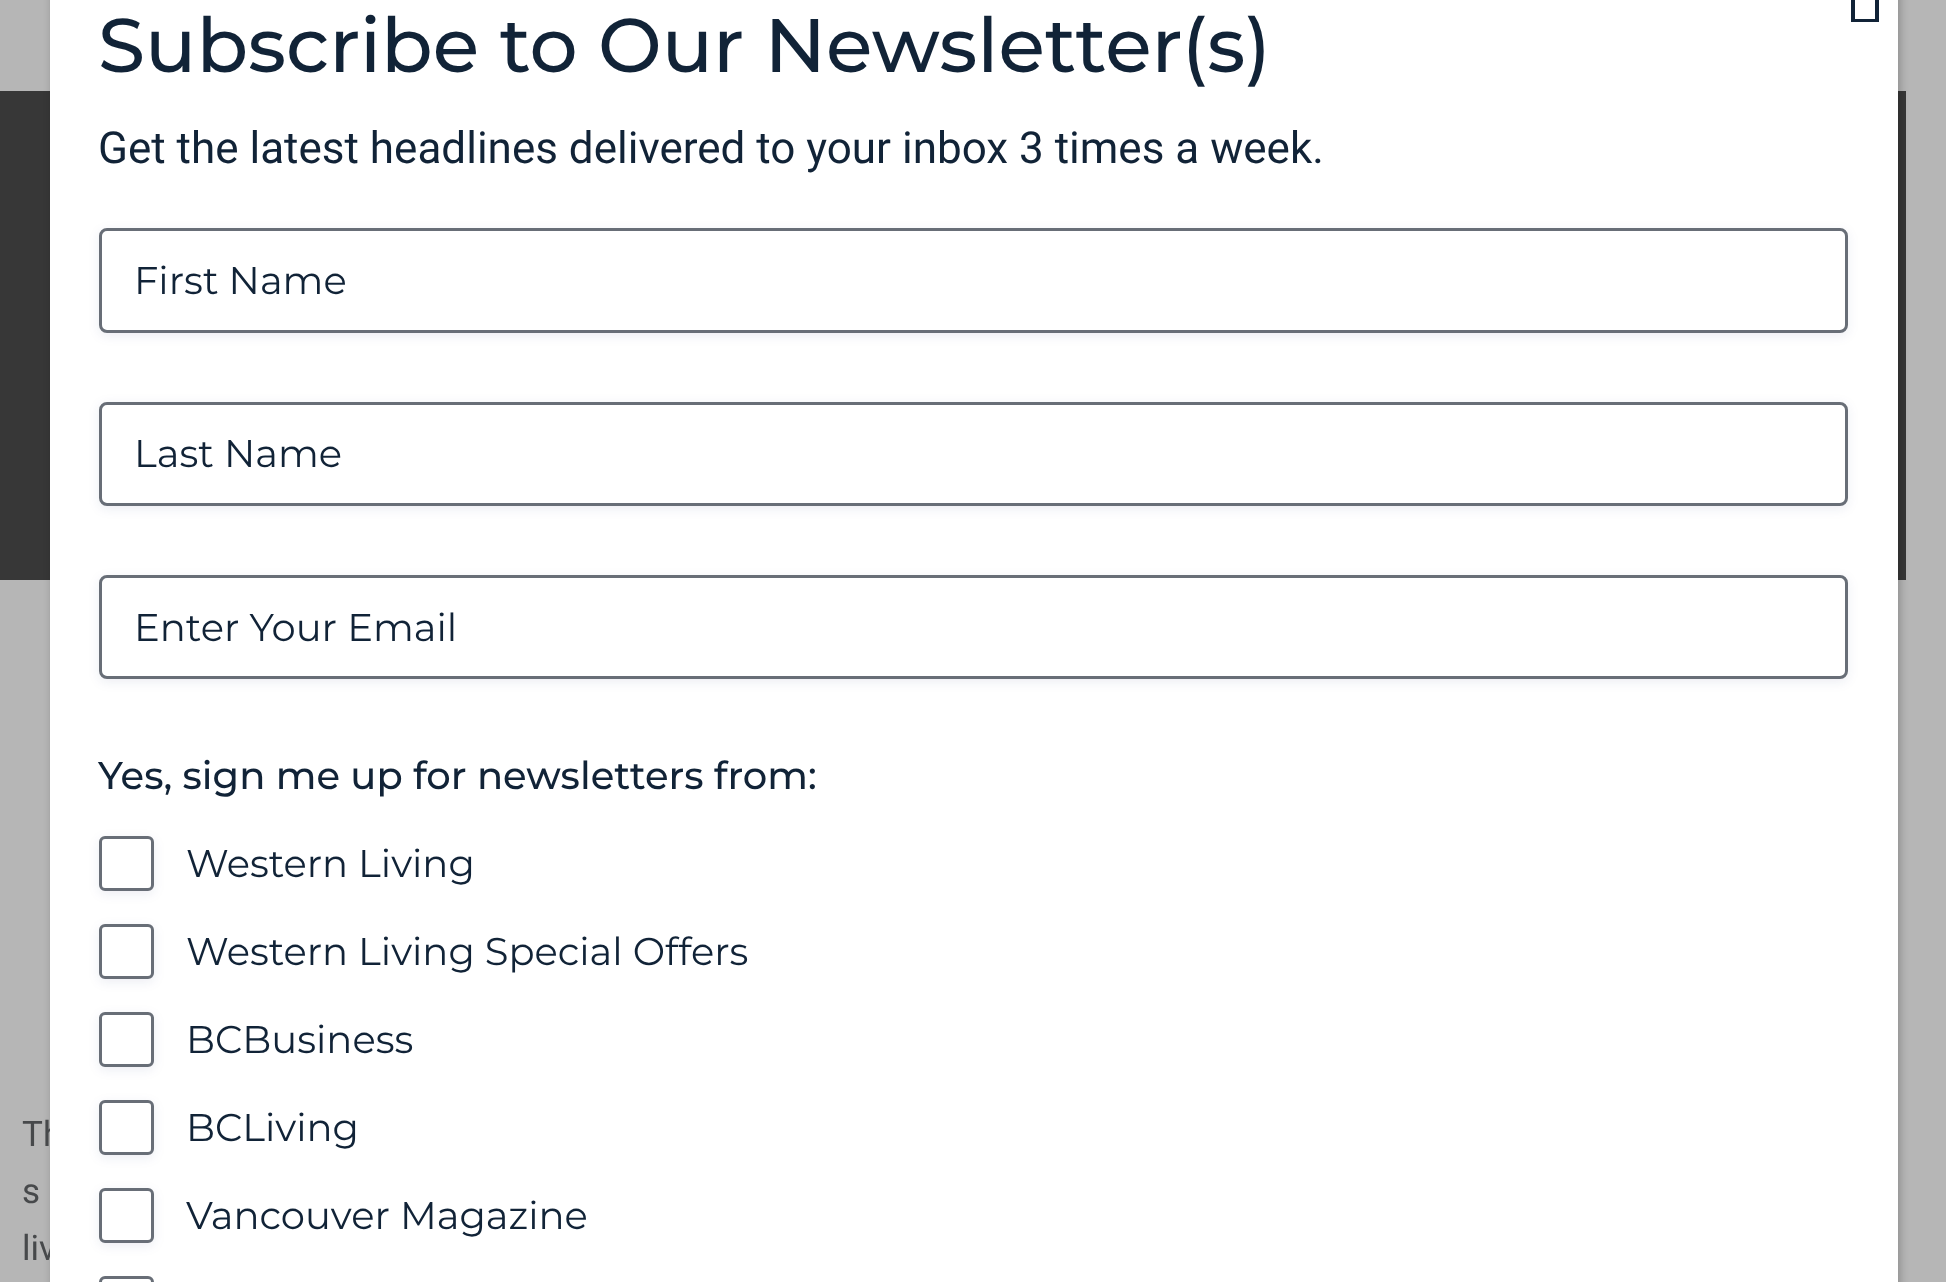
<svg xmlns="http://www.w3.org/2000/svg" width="1946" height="1282">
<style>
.a{font:35px Roboto;fill:#47494b}
.b{font:500 75.8px Montserrat;fill:#112337}
.c{font:44px Roboto;fill:#112337}
.d{font:38.5px Montserrat;fill:#112337}
.e{font:500 38.5px Montserrat;fill:#112337}
</style>
<rect width="100%" height="100%" fill="#b6b6b6"/>
<path fill="#373737" d="M0 91h1906v489H0z"/>
<path fill="#0202023b" filter="blur(4px)" d="M52 -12h1848v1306H52z"/>
<text class="a" x="22" y="1146">Th</text>
<text class="a" x="22" y="1203">s</text>
<text class="a" x="22" y="1260">liv</text>
<path fill="#fff" d="M50 0h1848v1282H50z"/>
<path fill="#112337" d="M1851 22v-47h28v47zm4-3h20v-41h-20z"/>
<text class="b" x="98" y="72">Subscribe to Our Newsletter(s)</text>
<text class="c" x="98" y="163">Get the latest headlines delivered to your inbox 3 times a week.</text>
<rect fill="#12196114" filter="blur(5.5px)" x="99" y="231" width="1749" height="105" rx="8"/>
<rect fill="#fff" stroke="#686e77" stroke-width="3" x="100.5" y="229.5" width="1746" height="102" rx="6.5"/>
<text class="d" x="134" y="294">First Name</text>
<rect fill="#12196114" filter="blur(5.5px)" x="99" y="404" width="1749" height="105" rx="8"/>
<rect fill="#fff" stroke="#686e77" stroke-width="3" x="100.5" y="403.5" width="1746" height="101" rx="6.5"/>
<text class="d" x="134" y="467">Last Name</text>
<rect fill="#12196114" filter="blur(5.5px)" x="99" y="578" width="1749" height="104" rx="8"/>
<rect fill="#fff" stroke="#686e77" stroke-width="3" x="100.5" y="576.5" width="1746" height="101" rx="6.5"/>
<text class="d" x="134" y="641">Enter Your Email</text>
<text class="e" x="98" y="789">Yes, sign me up for newsletters from:</text>
<rect fill="#12196114" filter="blur(5.5px)" x="99" y="839" width="55" height="55" rx="6"/>
<rect fill="#fff" stroke="#686e77" stroke-width="3" x="100.5" y="837.5" width="52" height="52" rx="4.5"/>
<text class="d" x="186" y="877">Western Living</text>
<rect fill="#12196114" filter="blur(5.5px)" x="99" y="927" width="55" height="55" rx="6"/>
<rect fill="#fff" stroke="#686e77" stroke-width="3" x="100.5" y="925.5" width="52" height="52" rx="4.5"/>
<text class="d" x="186" y="965">Western Living Special Offers</text>
<rect fill="#12196114" filter="blur(5.5px)" x="99" y="1015" width="55" height="55" rx="6"/>
<rect fill="#fff" stroke="#686e77" stroke-width="3" x="100.5" y="1013.5" width="52" height="52" rx="4.5"/>
<text class="d" x="186" y="1053">BCBusiness</text>
<rect fill="#12196114" filter="blur(5.5px)" x="99" y="1103" width="55" height="55" rx="6"/>
<rect fill="#fff" stroke="#686e77" stroke-width="3" x="100.5" y="1101.5" width="52" height="52" rx="4.5"/>
<text class="d" x="186" y="1141">BCLiving</text>
<rect fill="#12196114" filter="blur(5.5px)" x="99" y="1191" width="55" height="55" rx="6"/>
<rect fill="#fff" stroke="#686e77" stroke-width="3" x="100.5" y="1189.5" width="52" height="52" rx="4.5"/>
<text class="d" x="186" y="1229">Vancouver Magazine</text>
<rect fill="none" stroke="#686e77" stroke-width="3" x="100.5" y="1277.5" width="52" height="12" rx="4.5"/>
</svg>
